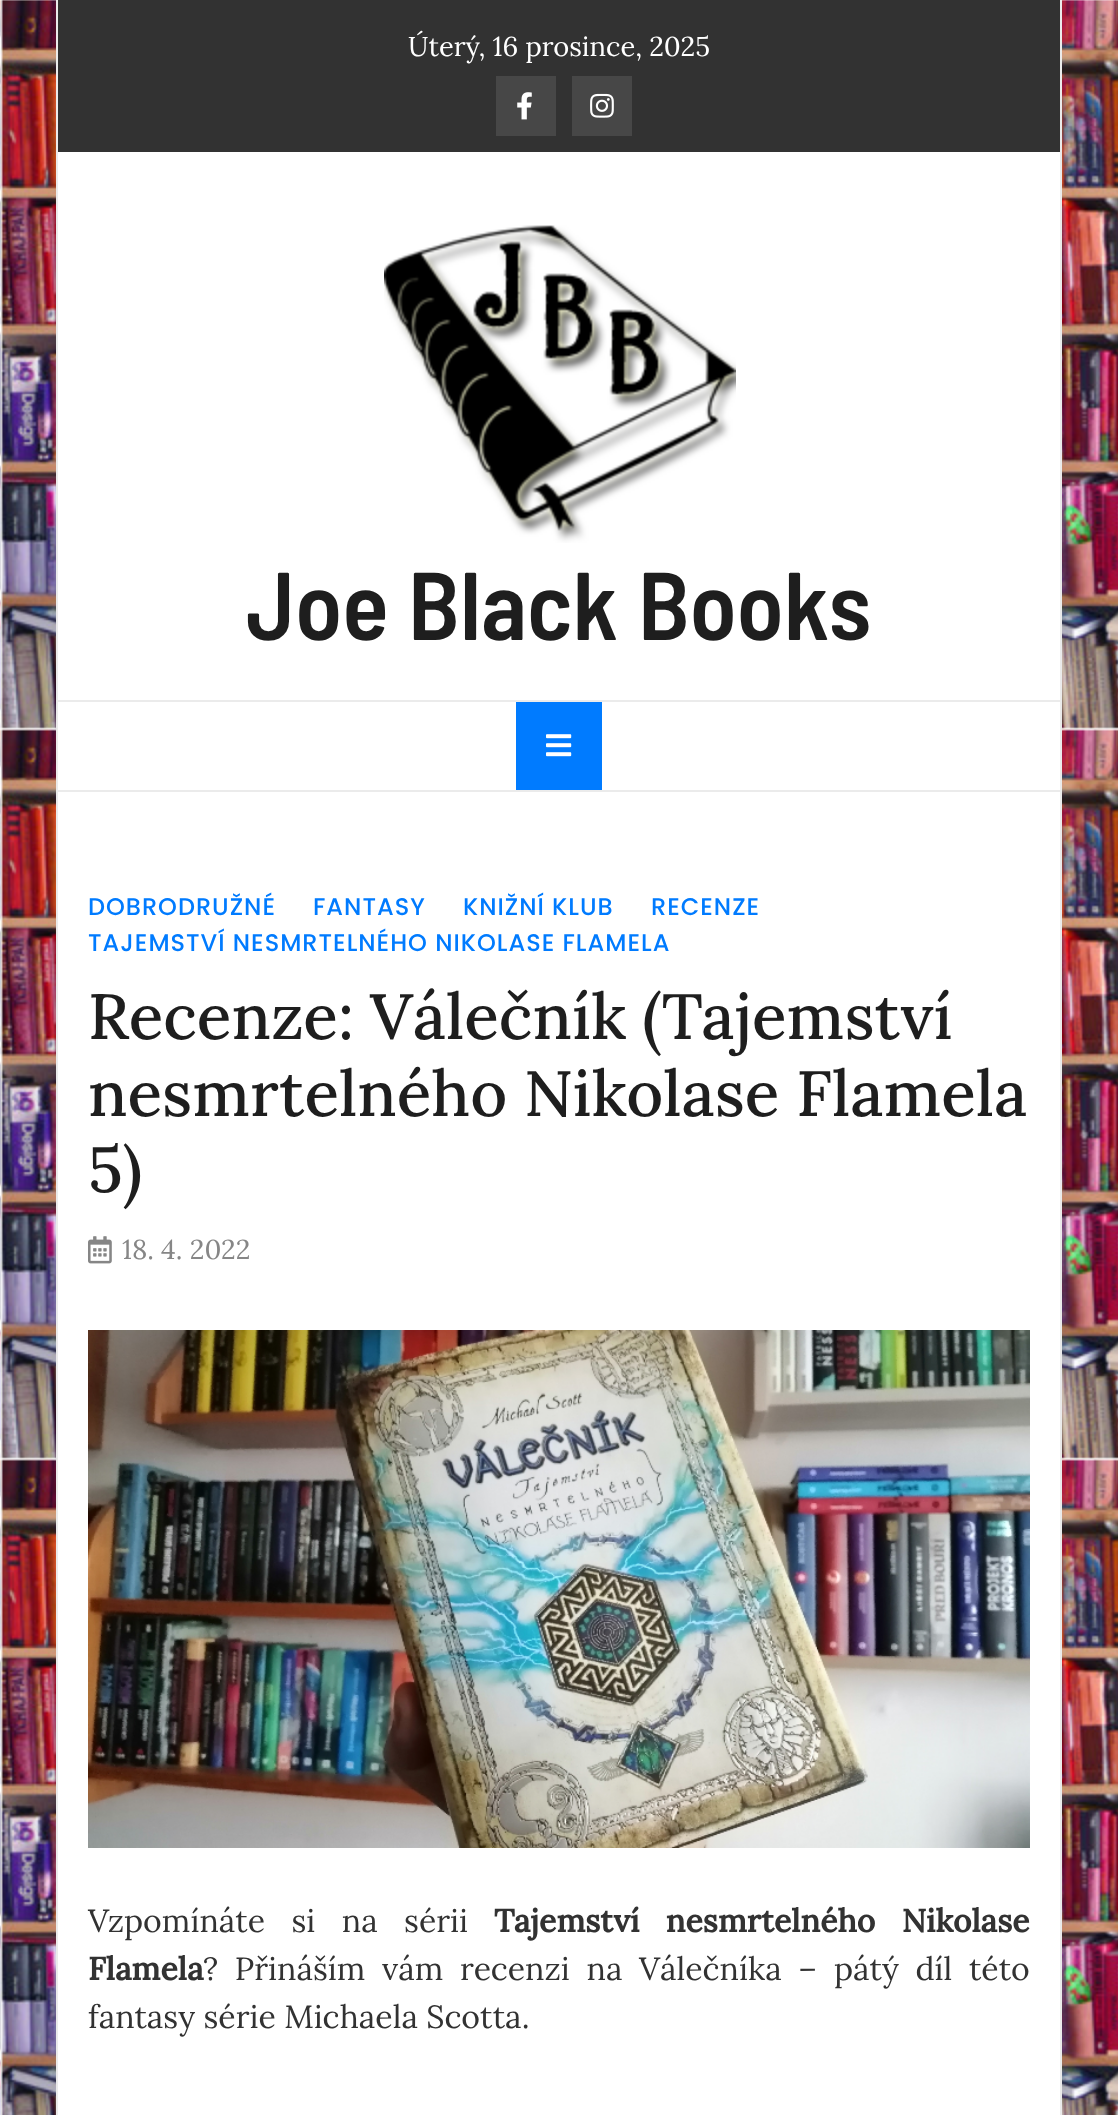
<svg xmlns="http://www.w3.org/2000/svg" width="1118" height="2115">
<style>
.a{font:27.25px Lora;fill:#fff}
.b{font:600 96px Barlow Semi Condensed;fill:#1e1e1e}
.c{font:500 24px Poppins;letter-spacing:1px;fill:#007bff}
.d{font:500 64px Lora;fill:#1e1e1e}
.e{font:27.25px Lora;fill:#868686}
.f{font:32px Lora;fill:#323232}
.g{font:bold 32px Lora;fill:#323232}
</style>
<rect width="100%" height="100%" fill="#fff"/>
<image href="1.png" x="0" y="0" width="1118" height="2115"/>
<path fill="#fff" d="M58 152h1002v1963H58z"/>
<path fill="#ebebeb" d="M1060 0h2v2115H1060z"/>
<path fill="#ebebeb" d="M56 0h2v2115H56z"/>
<path fill="#323232" d="M58 0h1002v152H58z"/>
<path fill="#474747" d="M496 76h60v60H496z"/>
<image href="2.png" x="517" y="92" width="15" height="28"/>
<path fill="#474747" d="M572 76h60v60H572z"/>
<image href="3.png" x="590" y="93" width="24" height="25"/>
<path fill="#ebebeb" d="M58 700h1002v2H58z"/>
<image href="4.png" x="384" y="225" width="352" height="318"/>
<path fill="#ebebeb" d="M58 790h1002v2H58z"/>
<path fill="#007bff" d="M516 702h86v88H516z"/>
<image href="5.png" x="546" y="734" width="26" height="23"/>
<image href="6.png" x="88" y="1236" width="24" height="28"/>
<image href="7.png" x="88" y="1330" width="942" height="518"/>
<text class="a" x="408" y="56">Úterý, 16 prosince, 2025</text>
<text class="b" x="246" y="640">Joe Black Books</text>
<text class="c" x="88" y="915">DOBRODRUŽNÉ</text>
<text class="c" x="313" y="915">FANTASY</text>
<text class="c" x="463" y="915">KNIŽNÍ KLUB</text>
<text class="c" x="651" y="915">RECENZE</text>
<text class="c" x="88" y="951">TAJEMSTVÍ NESMRTELNÉHO NIKOLASE FLAMELA</text>
<text class="d" x="88" y="1039" word-spacing="-1">Recenze: Válečník (Tajemství</text>
<text class="d" x="88" y="1116">nesmrtelného Nikolase Flamela</text>
<text class="d" x="88" y="1192">5)</text>
<text class="e" x="122" y="1259">18. 4. 2022</text>
<text class="f" x="88" y="1932" word-spacing="18">Vzpomínáte si na sérii</text>
<text class="g" x="494" y="1932" word-spacing="18">Tajemství nesmrtelného Nikolase</text>
<text class="g" x="88" y="1980">Flamela</text>
<text class="f" x="203" y="1980" word-spacing="8.25">? Přináším vám recenzi na Válečníka – pátý díl této</text>
<text class="f" x="88" y="2028">fantasy série Michaela Scotta.</text>
</svg>
